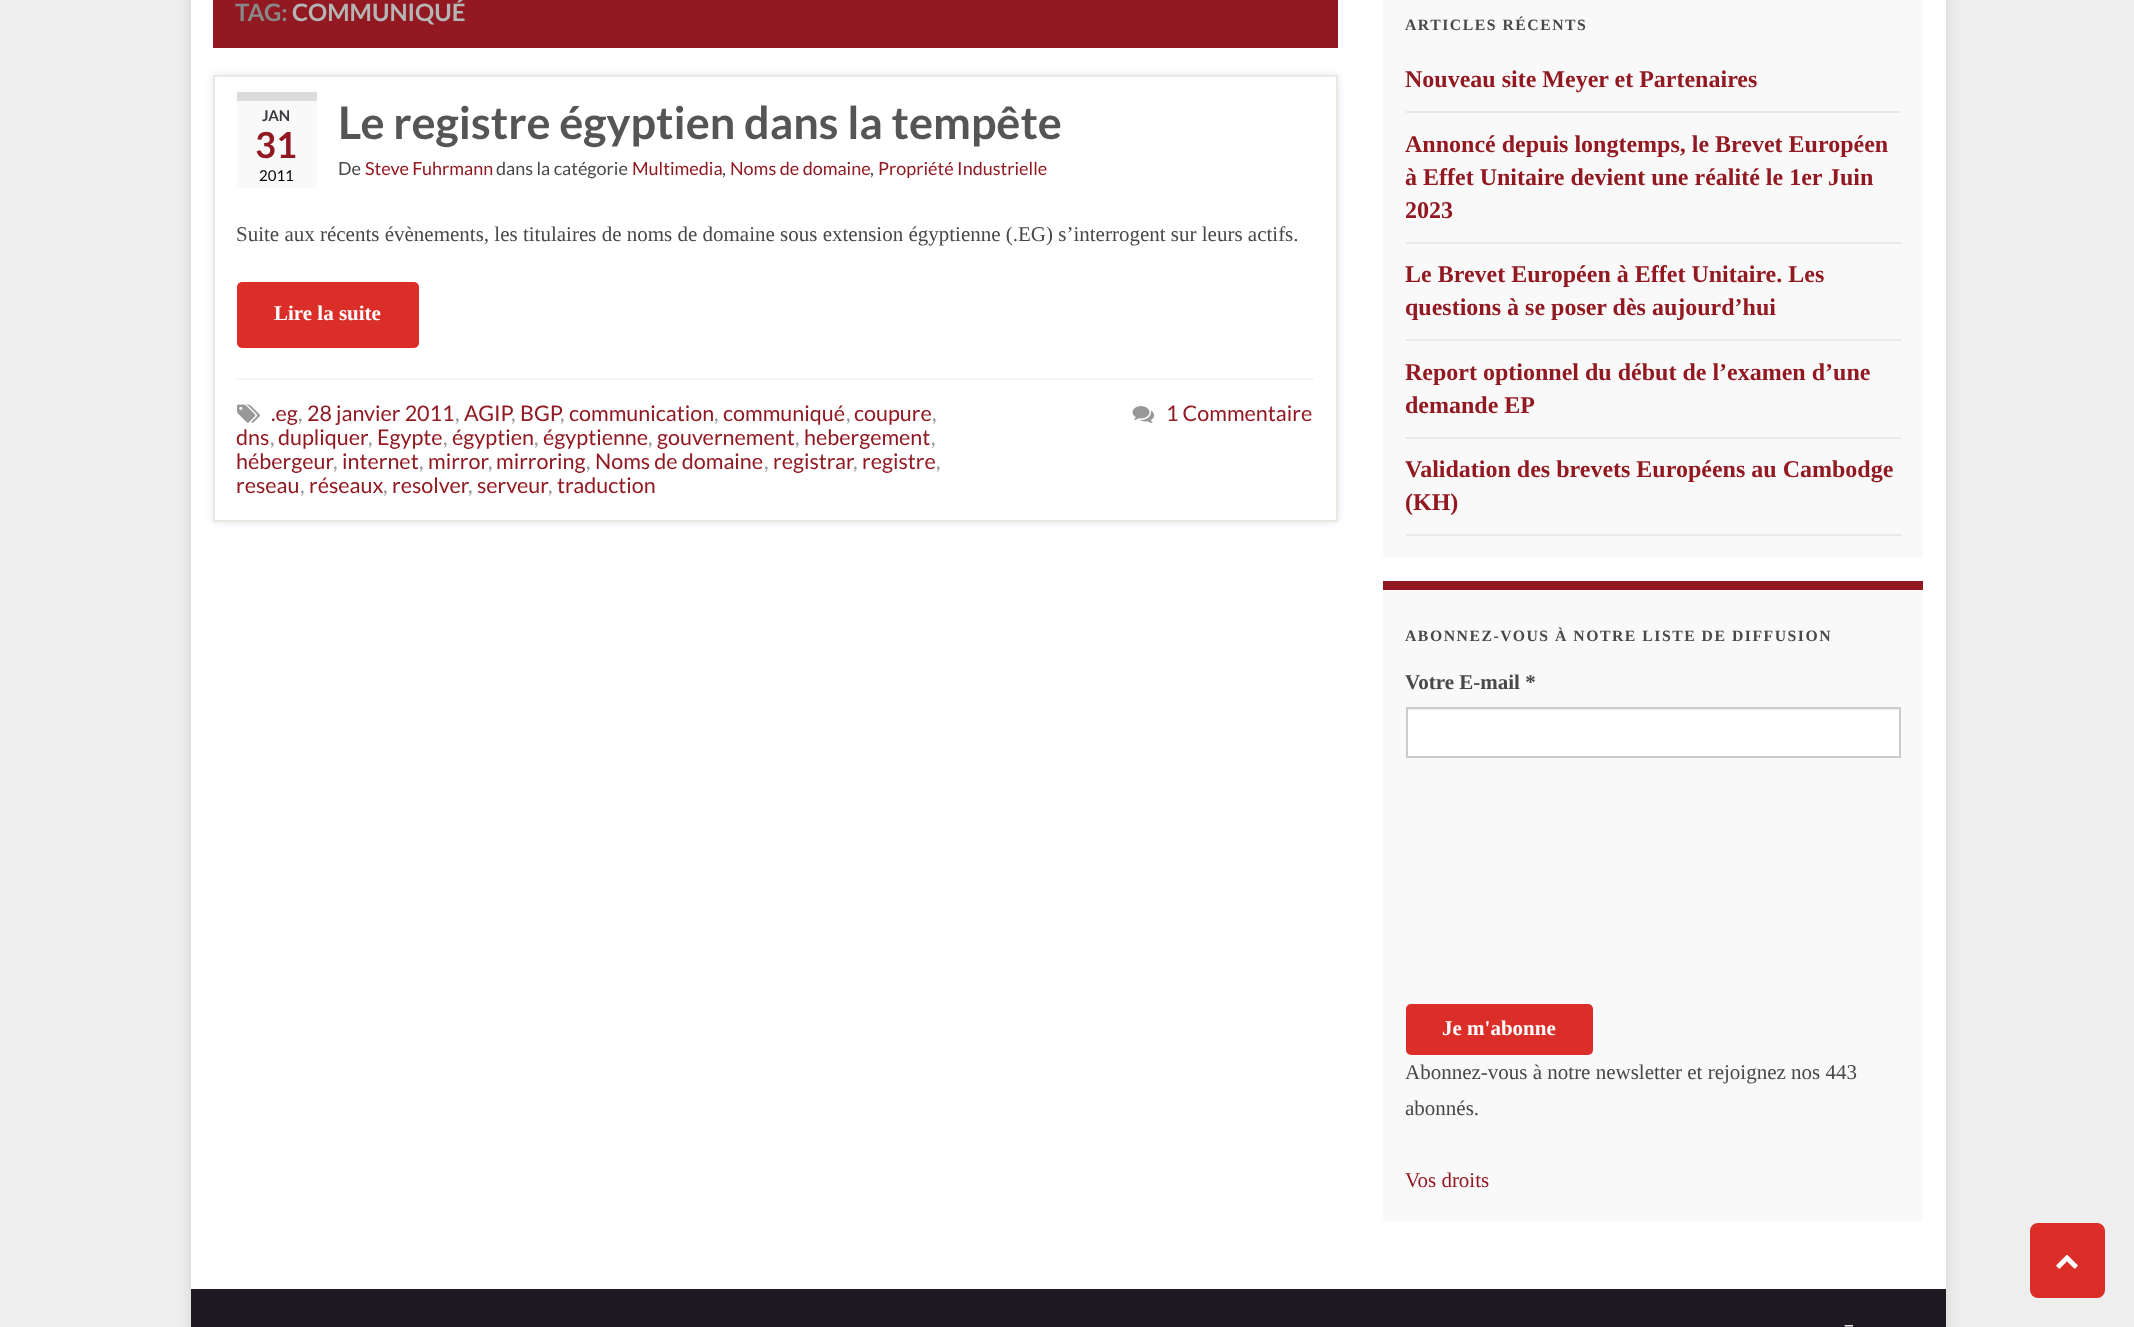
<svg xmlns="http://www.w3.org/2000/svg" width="2134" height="1327">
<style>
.a{font:bold 24px Lato;fill:#888}
.b{font:bold 24px Lato;fill:#b5b5b5}
.c{font:bold 15px Lato;fill:#3b383d}
.d{font:bold 36px Lato;fill:#921921}
.e{font:15px Lato;fill:#000}
.f{font:bold 45px Lato;fill:#555}
.g{font:18px Lato;fill:#4a474b}
.h{font:18px Lato;fill:#921921}
.i{font:21px Liberation Serif;fill:#4a474b}
.j{font:bold 21px Liberation Serif;fill:#fff}
.k{font:21.5px Lato;fill:#921921}
.l{font:21.5px Lato;fill:#989898}
.m{font:bold 15.75px Liberation Serif;letter-spacing:1.5px;fill:#4a474b}
.n{font:bold 24px Liberation Serif;fill:#921921}
.o{font:bold 21px Liberation Serif;fill:#4a474b}
.p{font:21px Liberation Serif;fill:#921921}
.q{font:21px Lato;fill:#fff}
</style>
<defs>
<clipPath id="clip1"><path d="M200 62h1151v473h-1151zm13 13h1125v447h-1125z" clip-rule="evenodd"/></clipPath>
</defs>
<rect width="100%" height="100%" fill="#eee"/>
<path fill="#0000001a" filter="blur(7.5px)" d="M191 -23h1755v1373H191z"/>
<path fill="#fff" d="M191 0h1755v1289H191z"/>
<path fill="#921921" d="M213 0h1125v48H213z"/>
<g clip-path="url(#clip1)">
<path fill="#0000001a" filter="blur(4px)" d="M213 75h1125v447H213z"/>
</g>
<path fill="none" stroke="#e9e8e3" stroke-width="2" d="M214 76h1123v445H214z"/>
<path fill="#f9f9f9" d="M237 101h80v87H237z"/>
<path fill="#dbdbdb" d="M237 92h80v9H237z"/>
<rect fill="#dc2e28" x="237" y="282" width="182" height="66" rx="5"/>
<path fill="#f5f5f5" d="M237 378h1077v2H237z"/>
<image href="1.png" x="237" y="404" width="23" height="19"/>
<image href="2.png" x="1132" y="406" width="23" height="17"/>
<path fill="#f9f9f9" d="M1383 0h540v558H1383z"/>
<path fill="#e9e9e9" d="M1406 111h495v2H1406z"/>
<path fill="#e9e9e9" d="M1406 242h495v2H1406z"/>
<path fill="#e9e9e9" d="M1406 339h495v2H1406z"/>
<path fill="#e9e9e9" d="M1406 437h495v2H1406z"/>
<path fill="#e9e9e9" d="M1406 534h495v2H1406z"/>
<path fill="#f9f9f9" d="M1383 590h540v631H1383z"/>
<path fill="#921921" d="M1383 581h540v9H1383z"/>
<path fill="#fff" d="M1408 710h491v46H1408z"/>
<path fill="#ececec" d="M1407 709h492v1H1407z"/>
<path fill="none" stroke="#ccc" stroke-width="2" d="M1407 708h493v49H1407z"/>
<rect fill="#dc2e28" x="1406" y="1004" width="187" height="51" rx="5"/>
<path fill="#1f1a22" d="M191 1289h1755v38H191z"/>
<rect fill="#dc2e28" x="2030" y="1223" width="75" height="75" rx="8"/>
<image href="3.png" x="2056" y="1254" width="22" height="15"/>
<text class="a" x="235" y="21">TAG:</text>
<text class="b" x="292" y="21">COMMUNIQUÉ</text>
<text class="c" x="262" y="121">JAN</text>
<text class="d" x="255" y="158">31</text>
<text class="e" x="259" y="181">2011</text>
<text class="f" x="338" y="139">Le registre égyptien dans la tempête</text>
<text class="g" x="338" y="175">De</text>
<text class="h" x="365" y="175">Steve Fuhrmann</text>
<text class="g" x="496" y="175">dans la catégorie</text>
<text class="h" x="632" y="175">Multimedia</text>
<text class="g" x="722" y="175">,</text>
<text class="h" x="730" y="175">Noms de domaine</text>
<text class="g" x="870" y="175">,</text>
<text class="h" x="878" y="175">Propriété Industrielle</text>
<text class="i" x="236" y="241">Suite aux récents évènements, les titulaires de noms de domaine sous extension égyptienne (.EG) s’interrogent sur leurs actifs.</text>
<text class="j" x="274" y="320">Lire la suite</text>
<text class="k" x="271" y="421">.eg</text>
<text class="l" x="298" y="421">,</text>
<text class="k" x="307" y="421">28 janvier 2011</text>
<text class="l" x="455" y="421">,</text>
<text class="k" x="464" y="421">AGIP</text>
<text class="k" x="520" y="421">BGP</text>
<text class="k" x="569" y="421">communication</text>
<text class="k" x="723" y="421">communiqué</text>
<text class="k" x="854" y="421">coupure</text>
<text class="l" x="511" y="421">,</text>
<text class="l" x="560" y="421">,</text>
<text class="l" x="714" y="421">,</text>
<text class="l" x="846" y="421">,</text>
<text class="l" x="932" y="421">,</text>
<text class="k" x="236" y="445">dns</text>
<text class="l" x="270" y="445">,</text>
<text class="k" x="278" y="445">dupliquer</text>
<text class="l" x="368" y="445">,</text>
<text class="k" x="377" y="445">Egypte</text>
<text class="l" x="443" y="445">,</text>
<text class="k" x="452" y="445">égyptien</text>
<text class="l" x="534" y="445">,</text>
<text class="k" x="543" y="445">égyptienne</text>
<text class="l" x="648" y="445">,</text>
<text class="k" x="657" y="445">gouvernement</text>
<text class="l" x="795" y="445">,</text>
<text class="k" x="804" y="445">hebergement</text>
<text class="l" x="931" y="445">,</text>
<text class="k" x="236" y="469">hébergeur</text>
<text class="l" x="333" y="469">,</text>
<text class="k" x="342" y="469">internet</text>
<text class="l" x="419" y="469">,</text>
<text class="k" x="428" y="469">mirror</text>
<text class="l" x="488" y="469">,</text>
<text class="k" x="496" y="469">mirroring</text>
<text class="l" x="586" y="469">,</text>
<text class="k" x="595" y="469">Noms de domaine</text>
<text class="l" x="764" y="469">,</text>
<text class="k" x="773" y="469">registrar</text>
<text class="l" x="853" y="469">,</text>
<text class="k" x="862" y="469">registre</text>
<text class="l" x="936" y="469">,</text>
<text class="k" x="236" y="493">reseau</text>
<text class="l" x="300" y="493">,</text>
<text class="k" x="309" y="493">réseaux</text>
<text class="l" x="383" y="493">,</text>
<text class="k" x="392" y="493">resolver</text>
<text class="l" x="468" y="493">,</text>
<text class="k" x="477" y="493">serveur</text>
<text class="l" x="548" y="493">,</text>
<text class="k" x="557" y="493">traduction</text>
<text class="k" x="1166" y="421">1 Commentaire</text>
<text class="m" x="1405" y="30">ARTICLES RÉCENTS</text>
<text class="n" x="1405" y="87">Nouveau site Meyer et Partenaires</text>
<text class="n" x="1405" y="152">Annoncé depuis longtemps, le Brevet Européen</text>
<text class="n" x="1405" y="185">à Effet Unitaire devient une réalité le 1er Juin</text>
<text class="n" x="1405" y="218">2023</text>
<text class="n" x="1405" y="282">Le Brevet Européen à Effet Unitaire. Les</text>
<text class="n" x="1405" y="315">questions à se poser dès aujourd’hui</text>
<text class="n" x="1405" y="380">Report optionnel du début de l’examen d’une</text>
<text class="n" x="1405" y="413">demande EP</text>
<text class="n" x="1405" y="477">Validation des brevets Européens au Cambodge</text>
<text class="n" x="1405" y="510">(KH)</text>
<text class="m" x="1405" y="641">ABONNEZ-VOUS À NOTRE LISTE DE DIFFUSION</text>
<text class="o" x="1405" y="689">Votre E-mail *</text>
<text class="j" x="1442" y="1035">Je m'abonne</text>
<text class="i" x="1405" y="1079">Abonnez-vous à notre newsletter et rejoignez nos 443</text>
<text class="i" x="1405" y="1115">abonnés.</text>
<text class="p" x="1405" y="1187">Vos droits</text>
<text class="q" x="1843" y="1332">–</text>
</svg>
